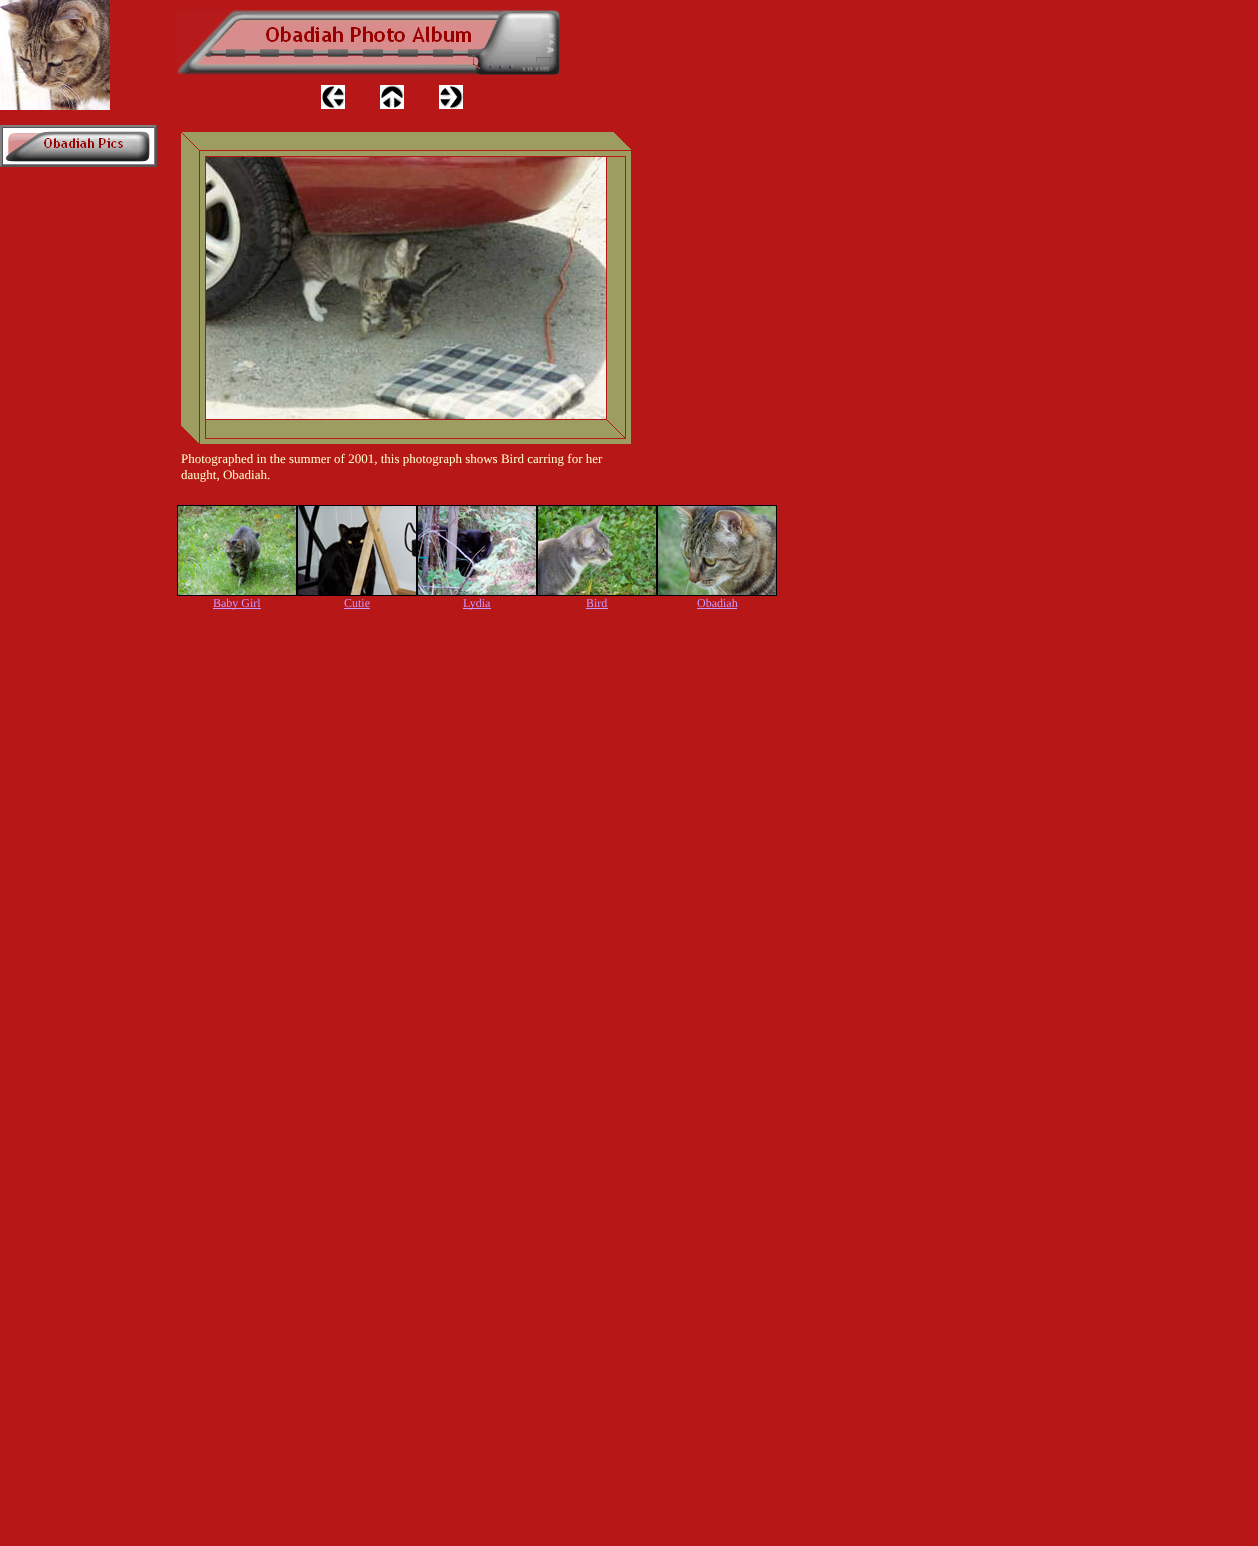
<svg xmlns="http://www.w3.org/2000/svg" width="1258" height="1546">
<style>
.a{font:13px Liberation Serif;fill:#ffc}
.b{font:12px Liberation Serif;fill:#c9f}
</style>
<rect width="100%" height="100%" fill="#b71717"/>
<image href="1.png" x="0" y="0" width="110" height="110"/>
<path fill="#808080" d="M0 125h157l-2 2h-153z"/>
<path fill="#555" d="M157 125v42l-2-2v-38z"/>
<path fill="#555" d="M157 167h-157l2-2h153z"/>
<path fill="#808080" d="M0 167v-42l2 2v38z"/>
<path fill="#555" d="M2 127h153v1H2z"/>
<path fill="#808080" d="M154 127h1v38H154z"/>
<path fill="#808080" d="M2 164h153v1H2z"/>
<path fill="#555" d="M2 127h1v38H2z"/>
<image href="2.png" x="3" y="128" width="151" height="36"/>
<image href="3.png" x="177" y="10" width="383" height="65"/>
<image href="4.png" x="321" y="85" width="24" height="24"/>
<image href="5.png" x="380" y="85" width="24" height="24"/>
<image href="6.png" x="439" y="85" width="24" height="24"/>
<image href="7.png" x="181" y="132" width="25" height="25"/>
<image href="8.png" x="206" y="132" width="400" height="24"/>
<image href="9.png" x="606" y="132" width="25" height="25"/>
<image href="10.png" x="181" y="157" width="24" height="262"/>
<image href="11.png" x="206" y="157" width="400" height="262"/>
<image href="10.png" x="607" y="157" width="24" height="262"/>
<image href="12.png" x="181" y="419" width="25" height="25"/>
<image href="8.png" x="206" y="420" width="400" height="24"/>
<image href="13.png" x="606" y="419" width="25" height="25"/>
<path fill="none" stroke="#000" d="M177.5 505.5h119v90H177.5z"/>
<image href="14.png" x="178" y="506" width="118" height="89"/>
<path fill="none" stroke="#000" d="M297.5 505.5h119v90H297.5z"/>
<image href="15.png" x="298" y="506" width="118" height="89"/>
<path fill="none" stroke="#000" d="M417.5 505.5h119v90H417.5z"/>
<image href="16.png" x="418" y="506" width="118" height="89"/>
<path fill="none" stroke="#000" d="M537.5 505.5h119v90H537.5z"/>
<image href="17.png" x="538" y="506" width="118" height="89"/>
<path fill="none" stroke="#000" d="M657.5 505.5h119v90H657.5z"/>
<image href="18.png" x="658" y="506" width="118" height="89"/>
<path fill="#c9f" d="M213 608h48v1H213z"/>
<path fill="#c9f" d="M344 608h26v1H344z"/>
<path fill="#c9f" d="M463 608h28v1H463z"/>
<path fill="#c9f" d="M586 608h22v1H586z"/>
<path fill="#c9f" d="M697 608h40v1H697z"/>
<text class="a" x="181" y="463">Photographed in the summer of 2001, this photograph shows Bird carring for her</text>
<text class="a" x="181" y="479">daught, Obadiah.</text>
<text class="b" x="213" y="607">Baby Girl</text>
<text class="b" x="344" y="607">Cutie</text>
<text class="b" x="463" y="607">Lydia</text>
<text class="b" x="586" y="607">Bird</text>
<text class="b" x="697" y="607">Obadiah</text>
</svg>
